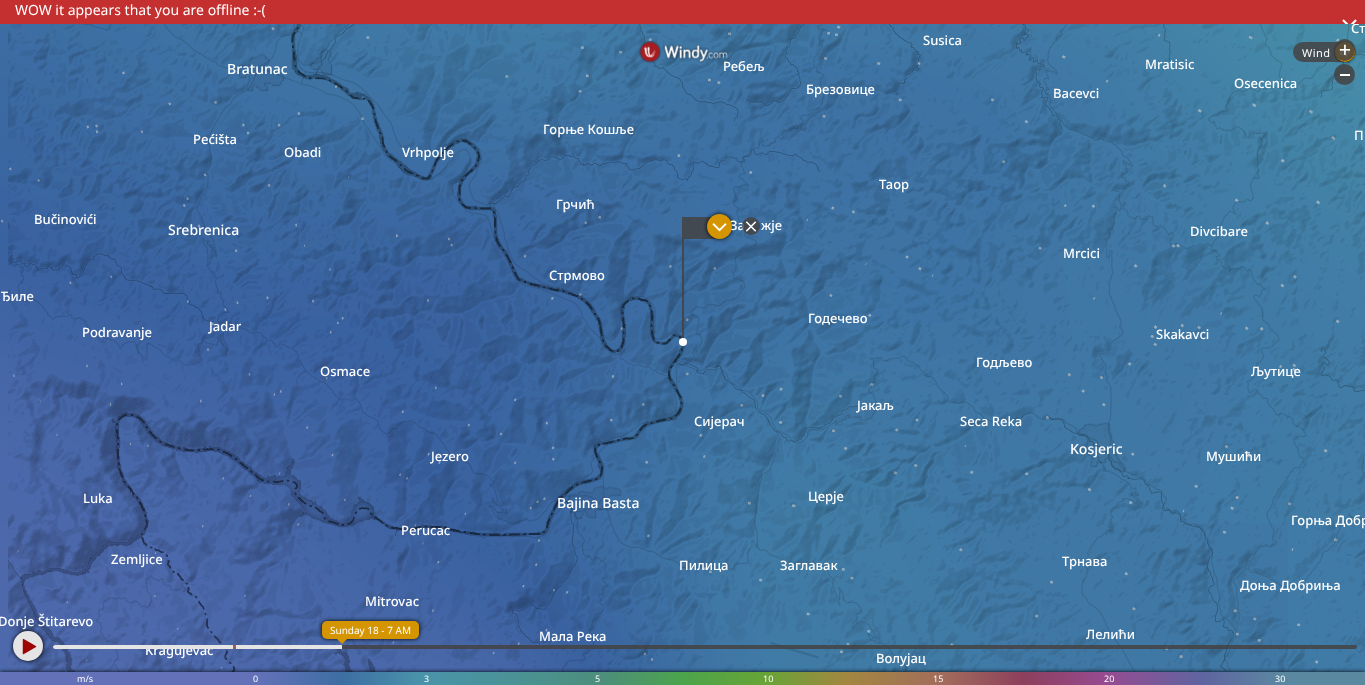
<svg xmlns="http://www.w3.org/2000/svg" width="1365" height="685">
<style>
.a{font:500 14px Noto Sans;fill:#fff}
.b{font:500 13px Noto Sans;fill:#fff}
.c{font:14px Noto Sans;fill:#fff}
.d{font:11px Noto Sans;letter-spacing:0.5px;fill:#fff}
.e{font:10px Noto Sans;fill:#fff}
.f{font:9px Noto Sans;fill:#fff}
</style>
<defs>
<linearGradient id="g1" gradientUnits="userSpaceOnUse" x1="0" y1="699" x2="1365" y2="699"><stop offset="0" stop-color="#6271b8"/><stop offset="0.19" stop-color="#6271b8"/><stop offset="0.25" stop-color="#3d6ea3"/><stop offset="0.31" stop-color="#4a94aa"/><stop offset="0.38" stop-color="#4a9294"/><stop offset="0.44" stop-color="#4d8e7c"/><stop offset="0.5" stop-color="#4ca44c"/><stop offset="0.56" stop-color="#67a436"/><stop offset="0.62" stop-color="#a28740"/><stop offset="0.69" stop-color="#a26d5c"/><stop offset="0.75" stop-color="#8d3f5c"/><stop offset="0.81" stop-color="#974b91"/><stop offset="0.88" stop-color="#5f64a0"/><stop offset="0.94" stop-color="#5b88a1"/><stop offset="1" stop-color="#5b88a1"/></linearGradient>
</defs>
<rect width="100%" height="100%" fill="#fff"/>
<image href="7.png" x="520" y="24" width="256" height="243"/>
<image href="14.png" x="520" y="267" width="256" height="256"/>
<image href="4.png" x="0" y="24" width="8" height="243"/>
<image href="5.png" x="8" y="24" width="256" height="243"/>
<image href="6.png" x="264" y="24" width="256" height="243"/>
<image href="8.png" x="776" y="24" width="256" height="243"/>
<image href="9.png" x="1032" y="24" width="256" height="243"/>
<image href="10.png" x="1288" y="24" width="77" height="243"/>
<image href="11.png" x="0" y="267" width="8" height="256"/>
<image href="12.png" x="8" y="267" width="256" height="256"/>
<image href="13.png" x="264" y="267" width="256" height="256"/>
<image href="15.png" x="776" y="267" width="256" height="256"/>
<image href="16.png" x="1032" y="267" width="256" height="256"/>
<image href="17.png" x="1288" y="267" width="77" height="256"/>
<path fill="#4d69ac" d="M0 523h8v149H0z"/>
<image href="18.png" x="8" y="523" width="256" height="149"/>
<image href="19.png" x="264" y="523" width="256" height="149"/>
<image href="20.png" x="520" y="523" width="256" height="149"/>
<image href="21.png" x="776" y="523" width="256" height="149"/>
<path fill="#4078a5" d="M1032 523h256v149H1032z"/>
<path fill="#407aa6" d="M1288 523h77v149H1288z"/>
<image href="40.png" x="1" y="25" width="1342" height="644"/>
<image href="24.png" x="520" y="24" width="256" height="243"/>
<image href="30.png" x="520" y="267" width="256" height="256"/>
<path fill="#444141d6" d="M682 217h2v125H682z"/>
<circle fill="#fff" cx="683" cy="342" r="4"/>
<path fill="#444141d6" d="M684 217h29c6 0 11 5 11 11c0 6-5 11-11 11h-29z"/>
<rect fill="#000" filter="blur(2px)" x="707" y="214" width="25" height="25" rx="12.5"/>
<image href="22.png" x="8" y="24" width="256" height="243"/>
<image href="23.png" x="264" y="24" width="256" height="243"/>
<image href="25.png" x="776" y="24" width="256" height="243"/>
<image href="26.png" x="1032" y="24" width="256" height="243"/>
<image href="27.png" x="1288" y="24" width="77" height="243"/>
<image href="28.png" x="8" y="267" width="256" height="256"/>
<image href="29.png" x="264" y="267" width="256" height="256"/>
<image href="31.png" x="776" y="267" width="256" height="256"/>
<image href="32.png" x="1032" y="267" width="256" height="256"/>
<image href="33.png" x="1288" y="267" width="77" height="256"/>
<image href="34.png" x="8" y="523" width="256" height="149"/>
<image href="35.png" x="264" y="523" width="256" height="149"/>
<image href="36.png" x="520" y="523" width="256" height="149"/>
<image href="37.png" x="776" y="523" width="256" height="149"/>
<image href="38.png" x="1032" y="523" width="256" height="149"/>
<image href="39.png" x="1288" y="523" width="77" height="149"/>
<image href="41.png" x="638" y="40" width="24" height="24"/>
<rect fill="#444141d6" x="1293" y="42" width="62" height="20" rx="10"/>
<rect fill="#000" filter="blur(1px)" x="1335" y="42" width="20" height="20" rx="10"/>
<circle fill="#d49500" cx="1345" cy="52" r="10"/>
<image href="43.png" x="1339" y="50" width="11" height="7"/>
<rect fill="#444141d6" x="1334" y="39" width="21" height="22" rx="10.5"/>
<image href="44.png" x="1339" y="44" width="12" height="11"/>
<circle fill="#444141d6" cx="1344.5" cy="74.5" r="10.5"/>
<path fill="#fff" d="M1340 74h10v2H1340z"/>
<rect fill="#000" filter="blur(2px)" x="13" y="631" width="30" height="30" rx="15"/>
<circle fill="#e5e5e5" cx="28" cy="646" r="15"/>
<image href="45.png" x="22" y="638" width="15" height="17"/>
<rect fill="#000" filter="blur(2px)" x="322" y="621" width="97" height="18" rx="5"/>
<rect fill="#d49500" x="322" y="621" width="97" height="18" rx="5"/>
<path fill="#d49500" d="M337 639h10l-5 5z"/>
<path fill="#000" filter="blur(2px)" d="M0 672h1365v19H0z"/>
<path fill="url(#g1)" d="M0 672h1365v13H0z"/>
<text class="a" x="227" y="74">Bratunac</text>
<text class="b" x="193" y="144">Pećišta</text>
<text class="b" x="34" y="224">Bučinovići</text>
<text class="a" x="168" y="235">Srebrenica</text>
<text class="b" x="284" y="157">Obadi</text>
<text class="b" x="402" y="157">Vrhpolje</text>
<text class="b" x="723" y="71">Ребељ</text>
<text class="b" x="543" y="134">Горње Кошље</text>
<text class="b" x="556" y="209">Грчић</text>
<text class="b" x="730" y="230">За</text>
<text class="b" x="761" y="230">жје</text>
<text class="b" x="923" y="45">Susica</text>
<text class="b" x="806" y="94">Брезовице</text>
<text class="b" x="879" y="189">Таор</text>
<text class="b" x="1145" y="69">Mratisic</text>
<text class="b" x="1234" y="88">Osecenica</text>
<text class="b" x="1053" y="98">Bacevci</text>
<text class="b" x="1190" y="236">Divcibare</text>
<text class="b" x="1063" y="258">Mrcici</text>
<text class="b" x="1351" y="33">Ст</text>
<path fill="#c42f2f" d="M0 0h1365v24H0z"/>
<image href="1.png" x="1342" y="19" width="15" height="5"/>
<text class="c" x="15" y="15">WOW it appears that you are offline :-(</text>
<text class="b" x="1354" y="140">П</text>
<text class="b" x="1" y="301">Ђиле</text>
<text class="b" x="82" y="337">Podravanje</text>
<text class="b" x="209" y="331">Jadar</text>
<text class="b" x="83" y="503">Luka</text>
<text class="b" x="320" y="376">Osmace</text>
<text class="b" x="431" y="461">Jezero</text>
<text class="b" x="549" y="280">Стрмово</text>
<text class="b" x="694" y="426">Сијерач</text>
<text class="a" x="557" y="508">Bajina Basta</text>
<text class="b" x="808" y="323">Годечево</text>
<text class="b" x="976" y="367">Годљево</text>
<text class="b" x="857" y="410">Јакаљ</text>
<text class="b" x="960" y="426">Seca Reka</text>
<text class="b" x="808" y="501">Церје</text>
<text class="b" x="1156" y="339">Skakavci</text>
<text class="b" x="1251" y="376">Љутице</text>
<text class="a" x="1070" y="454">Kosjeric</text>
<text class="b" x="1206" y="461">Мушићи</text>
<text class="b" x="1291" y="525">Горња Добр</text>
<text class="b" x="111" y="564">Zemljice</text>
<text class="b" x="-2" y="626">Donje Štitarevo</text>
<text class="b" x="145" y="655">Kragujevac</text>
<text class="b" x="401" y="535">Perucac</text>
<text class="b" x="365" y="606">Mitrovac</text>
<text class="b" x="679" y="570">Пилица</text>
<text class="b" x="539" y="641">Мала Река</text>
<text class="b" x="780" y="570">Заглавак</text>
<text class="b" x="876" y="663">Волујац</text>
<text class="b" x="1062" y="566">Трнава</text>
<text class="b" x="1086" y="639">Лелићи</text>
<text class="b" x="1240" y="590">Доња Добриња</text>
<circle fill="#d49500" cx="719.5" cy="226.5" r="12.5"/>
<image href="2.png" x="712" y="223" width="15" height="9"/>
<circle fill="#444141d6" cx="751" cy="226" r="9"/>
<image href="3.png" x="745" y="221" width="12" height="11"/>
<image href="42.png" x="663" y="44" width="66" height="19"/>
<text class="d" x="1302" y="57">Wind</text>
<text class="e" x="330" y="634">Sunday 18 - 7 AM</text>
<rect fill="#444141d6" x="53" y="645" width="1304" height="4" rx="2"/>
<path fill="#e5e5e5" d="M55 645h287v4h-287c-1 0-2-1-2-2c0-1 1-2 2-2z"/>
<path fill="#946051" d="M233 645h3v4H233z"/>
<text class="f" x="77" y="682">m/s</text>
<text class="f" x="253" y="682">0</text>
<text class="f" x="424" y="682">3</text>
<text class="f" x="595" y="682">5</text>
<text class="f" x="763" y="682">10</text>
<text class="f" x="933" y="682">15</text>
<text class="f" x="1104" y="682">20</text>
<text class="f" x="1275" y="682">30</text>
</svg>
